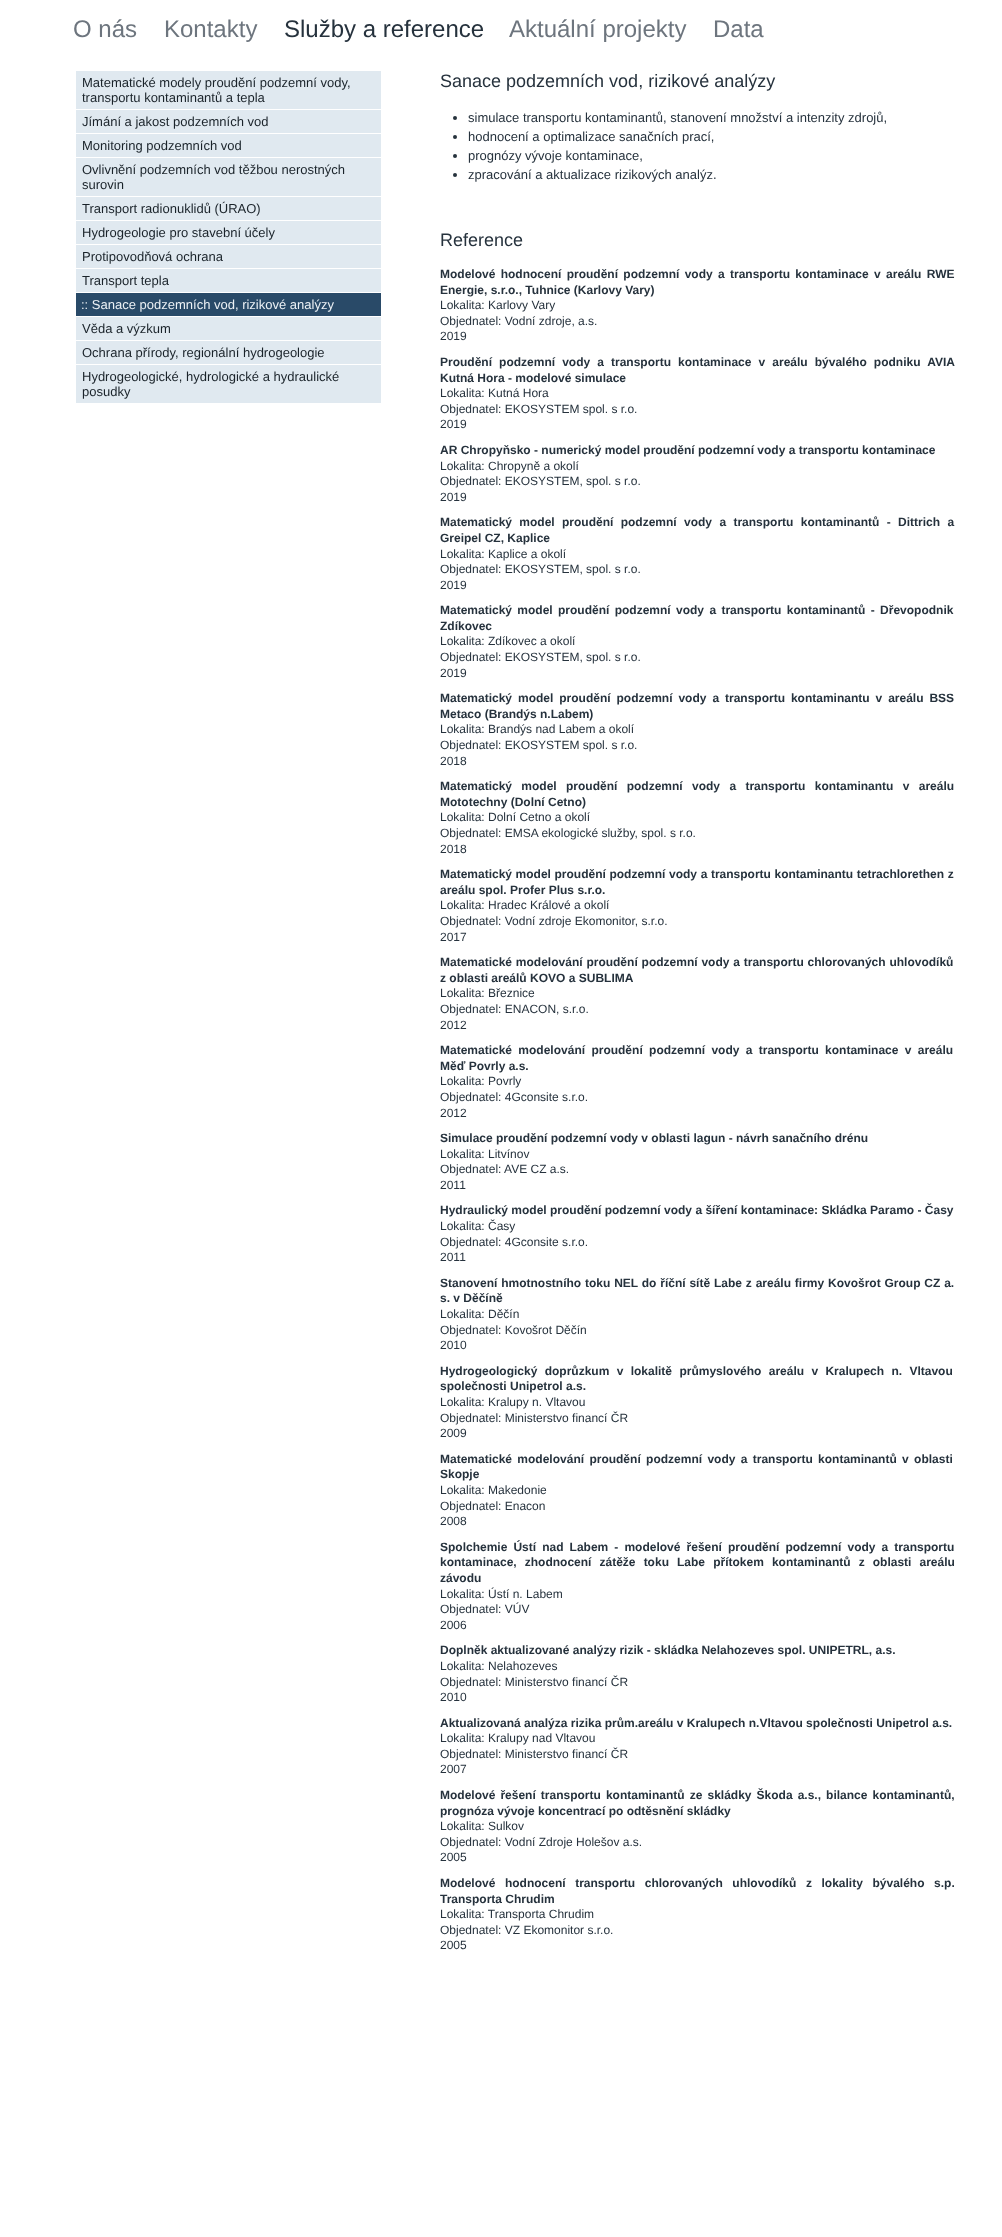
<svg xmlns="http://www.w3.org/2000/svg" width="1002" height="2237">
<style>
.a{font:24px Liberation Sans;fill:#6d757e}
.b{font:24px Liberation Sans;fill:#26323d}
.c{font:13px Liberation Sans;fill:#1a232a}
.d{font:13px Liberation Sans;fill:#ecf1f5}
.e{font:18px Liberation Sans;fill:#26323d}
.f{font:13px Liberation Sans;fill:#26323d}
.g{font:bold 12px Liberation Sans;fill:#26323d}
.h{font:12px Liberation Sans;fill:#26323d}
</style>
<rect width="100%" height="100%" fill="#fff"/>
<path fill="#e0e9f0" d="M76 71h305v38H76z"/>
<path fill="#e0e9f0" d="M76 110h305v23H76z"/>
<path fill="#e0e9f0" d="M76 134h305v23H76z"/>
<path fill="#e0e9f0" d="M76 158h305v38H76z"/>
<path fill="#e0e9f0" d="M76 197h305v23H76z"/>
<path fill="#e0e9f0" d="M76 221h305v23H76z"/>
<path fill="#e0e9f0" d="M76 245h305v23H76z"/>
<path fill="#e0e9f0" d="M76 269h305v23H76z"/>
<path fill="#294a68" d="M76 293h305v23H76z"/>
<path fill="#e0e9f0" d="M76 317h305v23H76z"/>
<path fill="#e0e9f0" d="M76 341h305v23H76z"/>
<path fill="#e0e9f0" d="M76 365h305v38H76z"/>
<circle fill="#26323d" cx="455" cy="118" r="2"/>
<circle fill="#26323d" cx="455" cy="137" r="2"/>
<circle fill="#26323d" cx="455" cy="156" r="2"/>
<circle fill="#26323d" cx="455" cy="175" r="2"/>
<text class="a" x="73" y="37">O nás</text>
<text class="a" x="164" y="37">Kontakty</text>
<text class="b" x="284" y="37">Služby a reference</text>
<text class="a" x="509" y="37">Aktuální projekty</text>
<text class="a" x="713" y="37">Data</text>
<text class="c" x="82" y="87">Matematické modely proudění podzemní vody,</text>
<text class="c" x="82" y="102">transportu kontaminantů a tepla</text>
<text class="c" x="82" y="126">Jímání a jakost podzemních vod</text>
<text class="c" x="82" y="150">Monitoring podzemních vod</text>
<text class="c" x="82" y="174">Ovlivnění podzemních vod těžbou nerostných</text>
<text class="c" x="82" y="189">surovin</text>
<text class="c" x="82" y="213">Transport radionuklidů (ÚRAO)</text>
<text class="c" x="82" y="237">Hydrogeologie pro stavební účely</text>
<text class="c" x="82" y="261">Protipovodňová ochrana</text>
<text class="c" x="82" y="285">Transport tepla</text>
<text class="d" x="81" y="309">:: Sanace podzemních vod, rizikové analýzy</text>
<text class="c" x="82" y="333">Věda a výzkum</text>
<text class="c" x="82" y="357">Ochrana přírody, regionální hydrogeologie</text>
<text class="c" x="82" y="381">Hydrogeologické, hydrologické a hydraulické</text>
<text class="c" x="82" y="396">posudky</text>
<text class="e" x="440" y="87">Sanace podzemních vod, rizikové analýzy</text>
<text class="f" x="468" y="122">simulace transportu kontaminantů, stanovení množství a intenzity zdrojů,</text>
<text class="f" x="468" y="141">hodnocení a optimalizace sanačních prací,</text>
<text class="f" x="468" y="160">prognózy vývoje kontaminace,</text>
<text class="f" x="468" y="179">zpracování a aktualizace rizikových analýz.</text>
<text class="e" x="440" y="246">Reference</text>
<text class="g" x="440" y="278" word-spacing="2">Modelové hodnocení proudění podzemní vody a transportu kontaminace v areálu RWE</text>
<text class="g" x="440" y="294">Energie, s.r.o., Tuhnice (Karlovy Vary)</text>
<text class="h" x="440" y="309">Lokalita: Karlovy Vary</text>
<text class="h" x="440" y="325">Objednatel: Vodní zdroje, a.s.</text>
<text class="h" x="440" y="340">2019</text>
<text class="g" x="440" y="366" word-spacing="3.75">Proudění podzemní vody a transportu kontaminace v areálu bývalého podniku AVIA</text>
<text class="g" x="440" y="382">Kutná Hora - modelové simulace</text>
<text class="h" x="440" y="397">Lokalita: Kutná Hora</text>
<text class="h" x="440" y="413">Objednatel: EKOSYSTEM spol. s r.o.</text>
<text class="h" x="440" y="428">2019</text>
<text class="g" x="440" y="454">AR Chropyňsko - numerický model proudění podzemní vody a transportu kontaminace</text>
<text class="h" x="440" y="470">Lokalita: Chropyně a okolí</text>
<text class="h" x="440" y="485">Objednatel: EKOSYSTEM, spol. s r.o.</text>
<text class="h" x="440" y="501">2019</text>
<text class="g" x="440" y="526" word-spacing="4">Matematický model proudění podzemní vody a transportu kontaminantů - Dittrich a</text>
<text class="g" x="440" y="542">Greipel CZ, Kaplice</text>
<text class="h" x="440" y="558">Lokalita: Kaplice a okolí</text>
<text class="h" x="440" y="573">Objednatel: EKOSYSTEM, spol. s r.o.</text>
<text class="h" x="440" y="589">2019</text>
<text class="g" x="440" y="614" word-spacing="2">Matematický model proudění podzemní vody a transportu kontaminantů - Dřevopodnik</text>
<text class="g" x="440" y="630">Zdíkovec</text>
<text class="h" x="440" y="645">Lokalita: Zdíkovec a okolí</text>
<text class="h" x="440" y="661">Objednatel: EKOSYSTEM, spol. s r.o.</text>
<text class="h" x="440" y="677">2019</text>
<text class="g" x="440" y="702" word-spacing="2.6">Matematický model proudění podzemní vody a transportu kontaminantu v areálu BSS</text>
<text class="g" x="440" y="718">Metaco (Brandýs n.Labem)</text>
<text class="h" x="440" y="733">Lokalita: Brandýs nad Labem a okolí</text>
<text class="h" x="440" y="749">Objednatel: EKOSYSTEM spol. s r.o.</text>
<text class="h" x="440" y="765">2018</text>
<text class="g" x="440" y="790" word-spacing="6">Matematický model proudění podzemní vody a transportu kontaminantu v areálu</text>
<text class="g" x="440" y="806">Mototechny (Dolní Cetno)</text>
<text class="h" x="440" y="821">Lokalita: Dolní Cetno a okolí</text>
<text class="h" x="440" y="837">Objednatel: EMSA ekologické služby, spol. s r.o.</text>
<text class="h" x="440" y="853">2018</text>
<text class="g" x="440" y="878" word-spacing="0.25">Matematický model proudění podzemní vody a transportu kontaminantu tetrachlorethen z</text>
<text class="g" x="440" y="894">areálu spol. Profer Plus s.r.o.</text>
<text class="h" x="440" y="909">Lokalita: Hradec Králové a okolí</text>
<text class="h" x="440" y="925">Objednatel: Vodní zdroje Ekomonitor, s.r.o.</text>
<text class="h" x="440" y="941">2017</text>
<text class="g" x="440" y="966" word-spacing="0.5">Matematické modelování proudění podzemní vody a transportu chlorovaných uhlovodíků</text>
<text class="g" x="440" y="982">z oblasti areálů KOVO a SUBLIMA</text>
<text class="h" x="440" y="997">Lokalita: Březnice</text>
<text class="h" x="440" y="1013">Objednatel: ENACON, s.r.o.</text>
<text class="h" x="440" y="1029">2012</text>
<text class="g" x="440" y="1054" word-spacing="3">Matematické modelování proudění podzemní vody a transportu kontaminace v areálu</text>
<text class="g" x="440" y="1070">Měď Povrly a.s.</text>
<text class="h" x="440" y="1085">Lokalita: Povrly</text>
<text class="h" x="440" y="1101">Objednatel: 4Gconsite s.r.o.</text>
<text class="h" x="440" y="1117">2012</text>
<text class="g" x="440" y="1142">Simulace proudění podzemní vody v oblasti lagun - návrh sanačního drénu</text>
<text class="h" x="440" y="1158">Lokalita: Litvínov</text>
<text class="h" x="440" y="1173">Objednatel: AVE CZ a.s.</text>
<text class="h" x="440" y="1189">2011</text>
<text class="g" x="440" y="1214">Hydraulický model proudění podzemní vody a šíření kontaminace: Skládka Paramo - Časy</text>
<text class="h" x="440" y="1230">Lokalita: Časy</text>
<text class="h" x="440" y="1246">Objednatel: 4Gconsite s.r.o.</text>
<text class="h" x="440" y="1261">2011</text>
<text class="g" x="440" y="1287" word-spacing="0.5">Stanovení hmotnostního toku NEL do říční sítě Labe z areálu firmy Kovošrot Group CZ a.</text>
<text class="g" x="440" y="1302">s. v Děčíně</text>
<text class="h" x="440" y="1318">Lokalita: Děčín</text>
<text class="h" x="440" y="1334">Objednatel: Kovošrot Děčín</text>
<text class="h" x="440" y="1349">2010</text>
<text class="g" x="440" y="1375" word-spacing="4">Hydrogeologický doprůzkum v lokalitě průmyslového areálu v Kralupech n. Vltavou</text>
<text class="g" x="440" y="1390">společnosti Unipetrol a.s.</text>
<text class="h" x="440" y="1406">Lokalita: Kralupy n. Vltavou</text>
<text class="h" x="440" y="1422">Objednatel: Ministerstvo financí ČR</text>
<text class="h" x="440" y="1437">2009</text>
<text class="g" x="440" y="1463" word-spacing="2">Matematické modelování proudění podzemní vody a transportu kontaminantů v oblasti</text>
<text class="g" x="440" y="1478">Skopje</text>
<text class="h" x="440" y="1494">Lokalita: Makedonie</text>
<text class="h" x="440" y="1510">Objednatel: Enacon</text>
<text class="h" x="440" y="1525">2008</text>
<text class="g" x="440" y="1551" word-spacing="2.75">Spolchemie Ústí nad Labem - modelové řešení proudění podzemní vody a transportu</text>
<text class="g" x="440" y="1566" word-spacing="4.75">kontaminace, zhodnocení zátěže toku Labe přítokem kontaminantů z oblasti areálu</text>
<text class="g" x="440" y="1582">závodu</text>
<text class="h" x="440" y="1598">Lokalita: Ústí n. Labem</text>
<text class="h" x="440" y="1613">Objednatel: VÚV</text>
<text class="h" x="440" y="1629">2006</text>
<text class="g" x="440" y="1654">Doplněk aktualizované analýzy rizik - skládka Nelahozeves spol. UNIPETRL, a.s.</text>
<text class="h" x="440" y="1670">Lokalita: Nelahozeves</text>
<text class="h" x="440" y="1686">Objednatel: Ministerstvo financí ČR</text>
<text class="h" x="440" y="1701">2010</text>
<text class="g" x="440" y="1727">Aktualizovaná analýza rizika prům.areálu v Kralupech n.Vltavou společnosti Unipetrol a.s.</text>
<text class="h" x="440" y="1742">Lokalita: Kralupy nad Vltavou</text>
<text class="h" x="440" y="1758">Objednatel: Ministerstvo financí ČR</text>
<text class="h" x="440" y="1773">2007</text>
<text class="g" x="440" y="1799" word-spacing="1.75">Modelové řešení transportu kontaminantů ze skládky Škoda a.s., bilance kontaminantů,</text>
<text class="g" x="440" y="1815">prognóza vývoje koncentrací po odtěsnění skládky</text>
<text class="h" x="440" y="1830">Lokalita: Sulkov</text>
<text class="h" x="440" y="1846">Objednatel: Vodní Zdroje Holešov a.s.</text>
<text class="h" x="440" y="1861">2005</text>
<text class="g" x="440" y="1887" word-spacing="6.25">Modelové hodnocení transportu chlorovaných uhlovodíků z lokality bývalého s.p.</text>
<text class="g" x="440" y="1903">Transporta Chrudim</text>
<text class="h" x="440" y="1918">Lokalita: Transporta Chrudim</text>
<text class="h" x="440" y="1934">Objednatel: VZ Ekomonitor s.r.o.</text>
<text class="h" x="440" y="1949">2005</text>
</svg>
